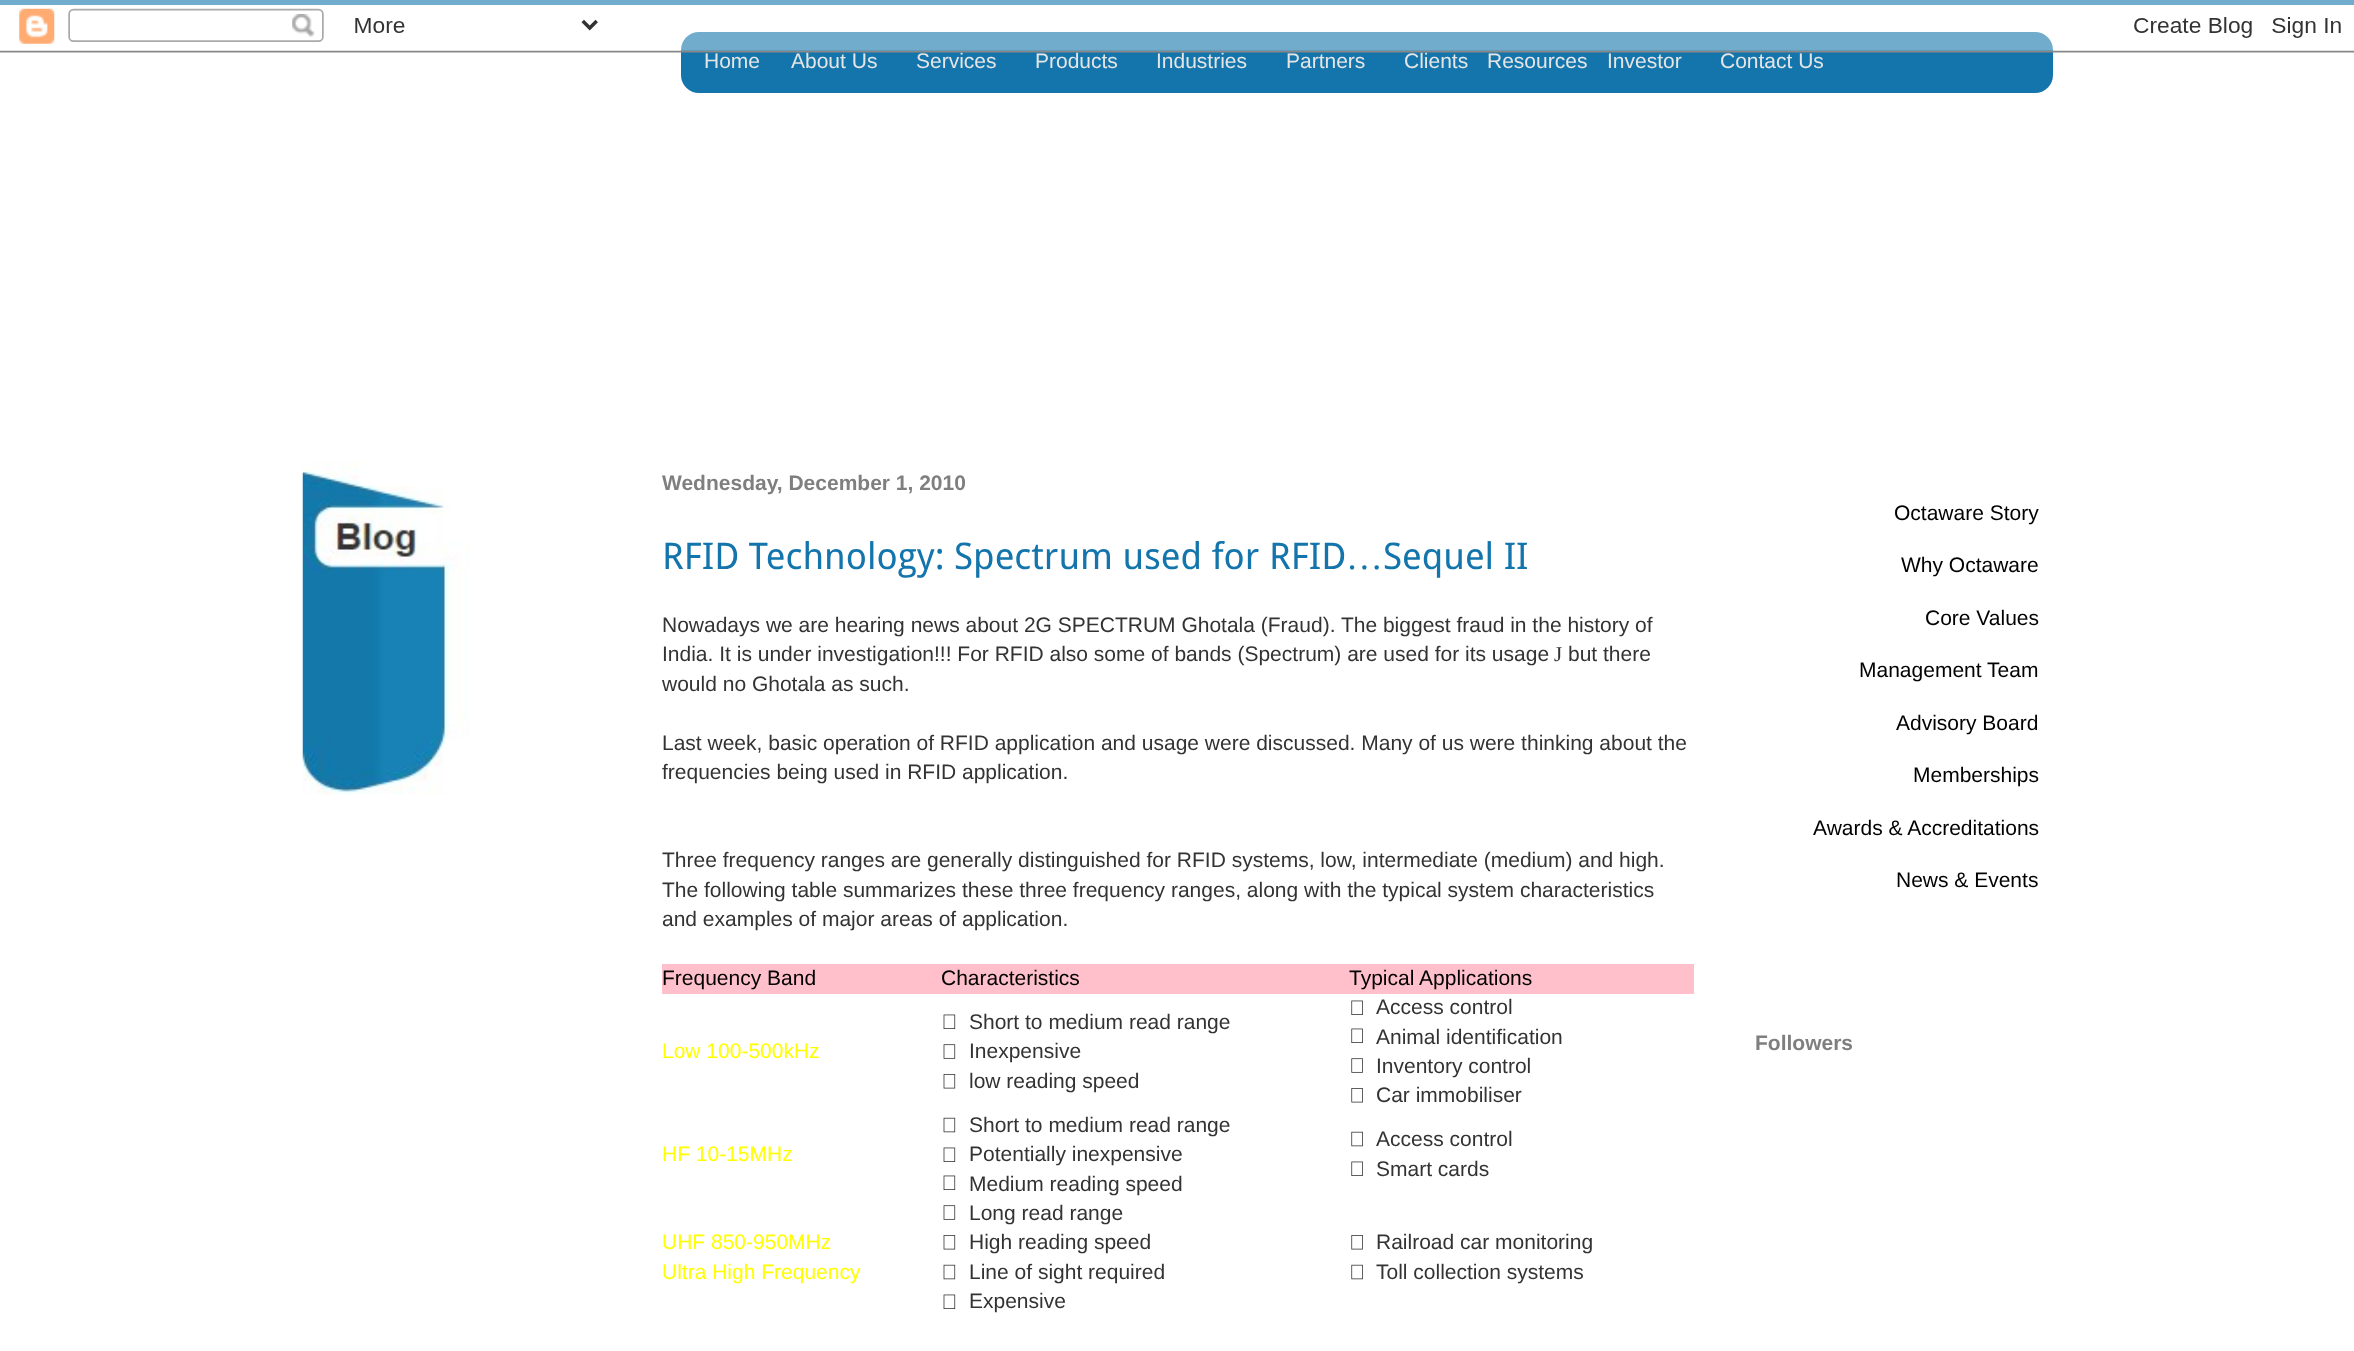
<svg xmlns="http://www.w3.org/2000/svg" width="2354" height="1351">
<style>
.a{font:21px Liberation Sans;fill:#e5e5e5}
.b{font:bold 21px Liberation Sans;fill:#7f7f7f}
.c{font:36.75px Droid Sans;fill:#1375ab}
.d{font:36.75px Liberation Serif;fill:#1375ab}
.e{font:21px Liberation Sans;fill:#333}
.f{font:21px Liberation Serif;fill:#333}
.g{font:21px Liberation Sans;fill:#000}
.h{font:21px Liberation Sans;fill:#ff0}
</style>
<rect width="100%" height="100%" fill="#fff"/>
<path fill="#1375ab" d="M0 0h2354v5H0z"/>
<rect fill="#1375ab" x="681" y="32" width="1372" height="61" rx="18"/>
<image href="2.png" x="302" y="462" width="168" height="333"/>
<path fill="#ffc0cb" d="M662 964h1032v30H662z"/>
<image href="3.png" x="943" y="1014" width="13" height="15"/>
<image href="4.png" x="943" y="1044" width="13" height="15"/>
<image href="5.png" x="943" y="1074" width="13" height="15"/>
<image href="6.png" x="1351" y="1000" width="12" height="15"/>
<image href="6.png" x="1351" y="1028" width="12" height="15"/>
<image href="7.png" x="1351" y="1058" width="12" height="15"/>
<image href="8.png" x="1351" y="1088" width="12" height="15"/>
<image href="9.png" x="943" y="1117" width="13" height="16"/>
<image href="3.png" x="943" y="1147" width="13" height="15"/>
<image href="3.png" x="943" y="1175" width="13" height="15"/>
<image href="10.png" x="1351" y="1131" width="12" height="16"/>
<image href="6.png" x="1351" y="1161" width="12" height="15"/>
<image href="4.png" x="943" y="1205" width="13" height="15"/>
<image href="5.png" x="943" y="1235" width="13" height="15"/>
<image href="9.png" x="943" y="1264" width="13" height="16"/>
<image href="3.png" x="943" y="1294" width="13" height="15"/>
<image href="8.png" x="1351" y="1235" width="12" height="15"/>
<image href="10.png" x="1351" y="1264" width="12" height="16"/>
<text class="a" x="704" y="68">Home</text>
<text class="a" x="791" y="68">About Us</text>
<text class="a" x="916" y="68">Services</text>
<text class="a" x="1035" y="68">Products</text>
<text class="a" x="1156" y="68">Industries</text>
<text class="a" x="1286" y="68">Partners</text>
<text class="a" x="1404" y="68">Clients</text>
<image href="1.png" x="0" y="0" width="2354" height="53"/>
<text class="a" x="1487" y="68">Resources</text>
<text class="a" x="1607" y="68">Investor</text>
<text class="a" x="1720" y="68">Contact Us</text>
<text class="b" x="662" y="490">Wednesday, December 1, 2010</text>
<text class="c" x="662" y="569">RFID Technology: Spectrum used for RFID</text>
<text class="d" x="1346" y="569">…</text>
<text class="c" x="1383" y="569">Sequel II</text>
<text class="e" x="662" y="632">Nowadays we are hearing news about 2G SPECTRUM Ghotala (Fraud). The biggest fraud in the history of</text>
<text class="e" x="662" y="661">India. It is under investigation!!! For RFID also some of bands (Spectrum) are used for its usage</text>
<text class="f" x="1554" y="661">J</text>
<text class="e" x="1568" y="661">but there</text>
<text class="e" x="662" y="691">would no Ghotala as such.</text>
<text class="e" x="662" y="750">Last week, basic operation of RFID application and usage were discussed. Many of us were thinking about the</text>
<text class="e" x="662" y="779">frequencies being used in RFID application.</text>
<text class="e" x="662" y="867">Three frequency ranges are generally distinguished for RFID systems, low, intermediate (medium) and high.</text>
<text class="e" x="662" y="897">The following table summarizes these three frequency ranges, along with the typical system characteristics</text>
<text class="e" x="662" y="926">and examples of major areas of application.</text>
<text class="g" x="662" y="985">Frequency Band</text>
<text class="g" x="941" y="985">Characteristics</text>
<text class="g" x="1349" y="985">Typical Applications</text>
<text class="h" x="662" y="1058">Low 100-500kHz</text>
<text class="e" x="969" y="1029">Short to medium read range</text>
<text class="e" x="969" y="1058">Inexpensive</text>
<text class="e" x="969" y="1088">low reading speed</text>
<text class="e" x="1376" y="1014">Access control</text>
<text class="e" x="1376" y="1044">Animal identification</text>
<text class="e" x="1376" y="1073">Inventory control</text>
<text class="e" x="1376" y="1102">Car immobiliser</text>
<text class="h" x="662" y="1161">HF 10-15MHz</text>
<text class="e" x="969" y="1132">Short to medium read range</text>
<text class="e" x="969" y="1161">Potentially inexpensive</text>
<text class="e" x="969" y="1191">Medium reading speed</text>
<text class="e" x="1376" y="1146">Access control</text>
<text class="e" x="1376" y="1176">Smart cards</text>
<text class="h" x="662" y="1249">UHF 850-950MHz</text>
<text class="h" x="662" y="1279">Ultra High Frequency</text>
<text class="e" x="969" y="1220">Long read range</text>
<text class="e" x="969" y="1249">High reading speed</text>
<text class="e" x="969" y="1279">Line of sight required</text>
<text class="e" x="969" y="1308">Expensive</text>
<text class="e" x="1376" y="1249">Railroad car monitoring</text>
<text class="e" x="1376" y="1279">Toll collection systems</text>
<text class="g" x="1894" y="520">Octaware Story</text>
<text class="g" x="1901" y="572">Why Octaware</text>
<text class="g" x="1925" y="625">Core Values</text>
<text class="g" x="1859" y="677">Management Team</text>
<text class="g" x="1896" y="730">Advisory Board</text>
<text class="g" x="1913" y="782">Memberships</text>
<text class="g" x="1813" y="835">Awards &amp; Accreditations</text>
<text class="g" x="1896" y="887">News &amp; Events</text>
<text class="b" x="1755" y="1050">Followers</text>
</svg>
